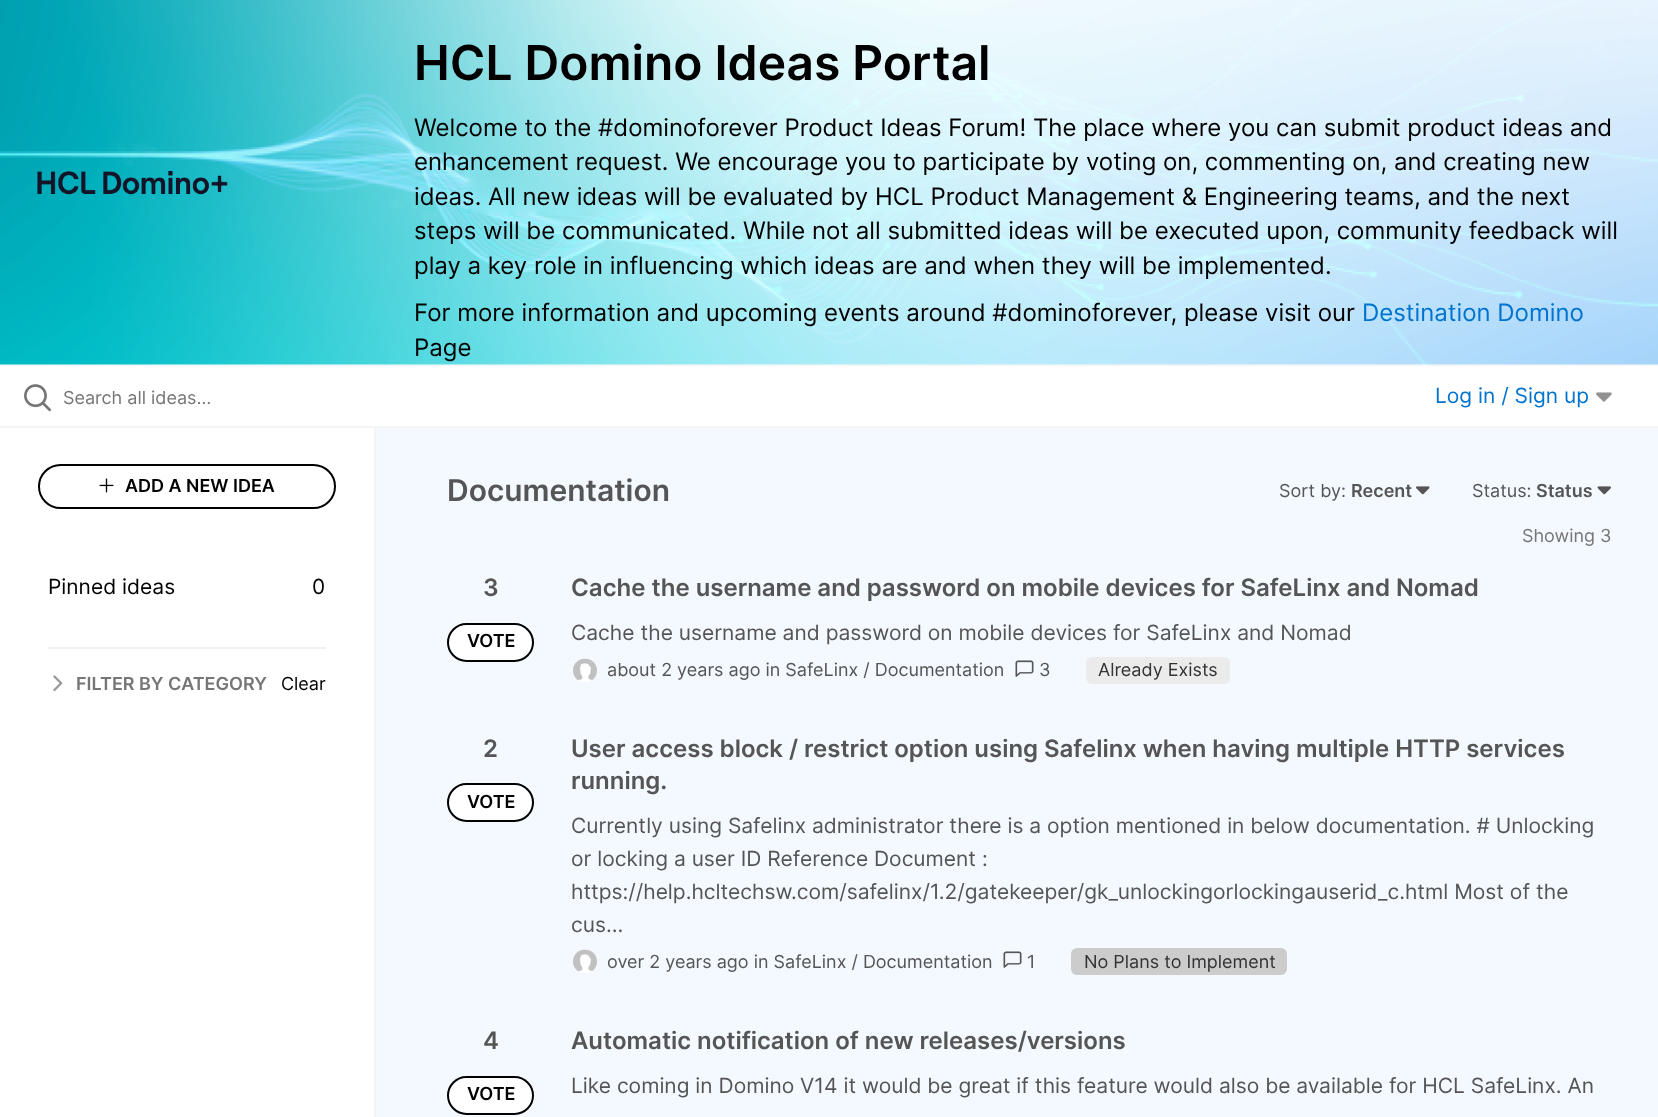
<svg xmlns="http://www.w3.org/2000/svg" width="1658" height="1117">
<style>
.a{font:600 48px Inter;fill:#000}
.b{font:24px Inter;fill:#000}
.c{font:24px Inter;fill:#0073cf}
.d{font:18px Inter;fill:#767676}
.e{font:21px Inter;fill:#0073cf}
.f{font:600 18px Inter;fill:#000}
.g{font:21px Inter;fill:#000}
.h{font:600 18px Inter;fill:#767676}
.i{font:18px Inter;fill:#000}
.j{font:600 30px Inter;fill:#555}
.k{font:18px Inter;fill:#555}
.l{font:600 18px Inter;fill:#555}
.m{font:600 24px Inter;fill:#555}
.n{font:21px Inter;fill:#555}
.o{font:18px Inter;fill:#333}
</style>
<rect width="100%" height="100%" fill="#f3f9fe"/>
<path fill="#fff" d="M0 364h1658v1H0z"/>
<image href="1.png" x="0" y="0" width="1658" height="365"/>
<path fill="#f4f4f4" d="M0 365h1658v1H0z"/>
<image href="2.png" x="37" y="171" width="191" height="24"/>
<path fill="#fff" d="M0 366h1658v60H0z"/>
<path fill="#f4f4f4" d="M0 426h1658v2H0z"/>
<image href="3.png" x="24" y="384" width="27" height="28"/>
<image href="4.png" x="1596" y="392" width="16" height="10"/>
<path fill="#fff" d="M0 428h374v689H0z"/>
<path fill="#f4f4f4" d="M374 428h2v689H374z"/>
<rect fill="none" stroke="#000" stroke-width="2" x="39" y="465" width="296" height="43" rx="21.5"/>
<image href="5.png" x="99" y="478" width="15" height="15"/>
<path fill="#f1f1f1" d="M48 647h278v2H48z"/>
<image href="6.png" x="53" y="675" width="10" height="17"/>
<image href="7.png" x="1416" y="486" width="14" height="9"/>
<image href="8.png" x="1597" y="486" width="14" height="9"/>
<rect fill="#fff" stroke="#000" stroke-width="2" x="448" y="624" width="85" height="37" rx="18.5"/>
<image href="9.png" x="573" y="658" width="24" height="24"/>
<image href="10.png" x="1015" y="660" width="19" height="17"/>
<rect fill="#ebebeb" x="1086" y="657" width="144" height="27" rx="6"/>
<rect fill="#fff" stroke="#000" stroke-width="2" x="448" y="784" width="85" height="37" rx="18.5"/>
<image href="9.png" x="573" y="949" width="24" height="24"/>
<image href="10.png" x="1003" y="951" width="19" height="17"/>
<rect fill="#ccc" x="1071" y="948" width="216" height="27" rx="6"/>
<rect fill="#fff" stroke="#000" stroke-width="2" x="448" y="1077" width="85" height="37" rx="18.5"/>
<text class="a" x="414" y="80">HCL Domino Ideas Portal</text>
<text class="b" x="414" y="136">Welcome to the #dominoforever Product Ideas Forum! The place where you can submit product ideas and</text>
<text class="b" x="414" y="170">enhancement request. We encourage you to participate by voting on, commenting on, and creating new</text>
<text class="b" x="414" y="205">ideas. All new ideas will be evaluated by HCL Product Management &amp; Engineering teams, and the next</text>
<text class="b" x="414" y="239">steps will be communicated. While not all submitted ideas will be executed upon, community feedback will</text>
<text class="b" x="414" y="274">play a key role in influencing which ideas are and when they will be implemented.</text>
<text class="b" x="414" y="321">For more information and upcoming events around #dominoforever, please visit our</text>
<text class="c" x="1362" y="321">Destination Domino</text>
<text class="b" x="414" y="356">Page</text>
<text class="d" x="63" y="404">Search all ideas…</text>
<text class="e" x="1435" y="403">Log in / Sign up</text>
<text class="f" x="125" y="492">ADD A NEW IDEA</text>
<text class="g" x="48" y="594">Pinned ideas</text>
<text class="g" x="312" y="594">0</text>
<text class="h" x="76" y="690">FILTER BY CATEGORY</text>
<text class="i" x="281" y="690">Clear</text>
<text class="j" x="447" y="501">Documentation</text>
<text class="k" x="1279" y="497">Sort by:</text>
<text class="l" x="1351" y="497">Recent</text>
<text class="k" x="1472" y="497">Status:</text>
<text class="l" x="1536" y="497">Status</text>
<text class="d" x="1522" y="542">Showing 3</text>
<text class="m" x="483" y="596">3</text>
<text class="f" x="467" y="647">VOTE</text>
<text class="m" x="571" y="596">Cache the username and password on mobile devices for SafeLinx and Nomad</text>
<text class="n" x="571" y="640">Cache the username and password on mobile devices for SafeLinx and Nomad</text>
<text class="k" x="607" y="676">about 2 years ago in SafeLinx / Documentation</text>
<text class="k" x="1039" y="676">3</text>
<text class="o" x="1098" y="676">Already Exists</text>
<text class="m" x="483" y="757">2</text>
<text class="f" x="467" y="808">VOTE</text>
<text class="m" x="571" y="757">User access block / restrict option using Safelinx when having multiple HTTP services</text>
<text class="m" x="571" y="789">running.</text>
<text class="n" x="571" y="833">Currently using Safelinx administrator there is a option mentioned in below documentation. # Unlocking</text>
<text class="n" x="571" y="866">or locking a user ID Reference Document :</text>
<text class="n" x="571" y="899">https://help.hcltechsw.com/safelinx/1.2/gatekeeper/gk_unlockingorlockingauserid_c.html Most of the</text>
<text class="n" x="571" y="932">cus...</text>
<text class="k" x="607" y="968">over 2 years ago in SafeLinx / Documentation</text>
<text class="k" x="1027" y="968">1</text>
<text class="o" x="1084" y="968">No Plans to Implement</text>
<text class="m" x="483" y="1049">4</text>
<text class="f" x="467" y="1100">VOTE</text>
<text class="m" x="571" y="1049">Automatic notification of new releases/versions</text>
<text class="n" x="571" y="1093">Like coming in Domino V14 it would be great if this feature would also be available for HCL SafeLinx. An</text>
</svg>
